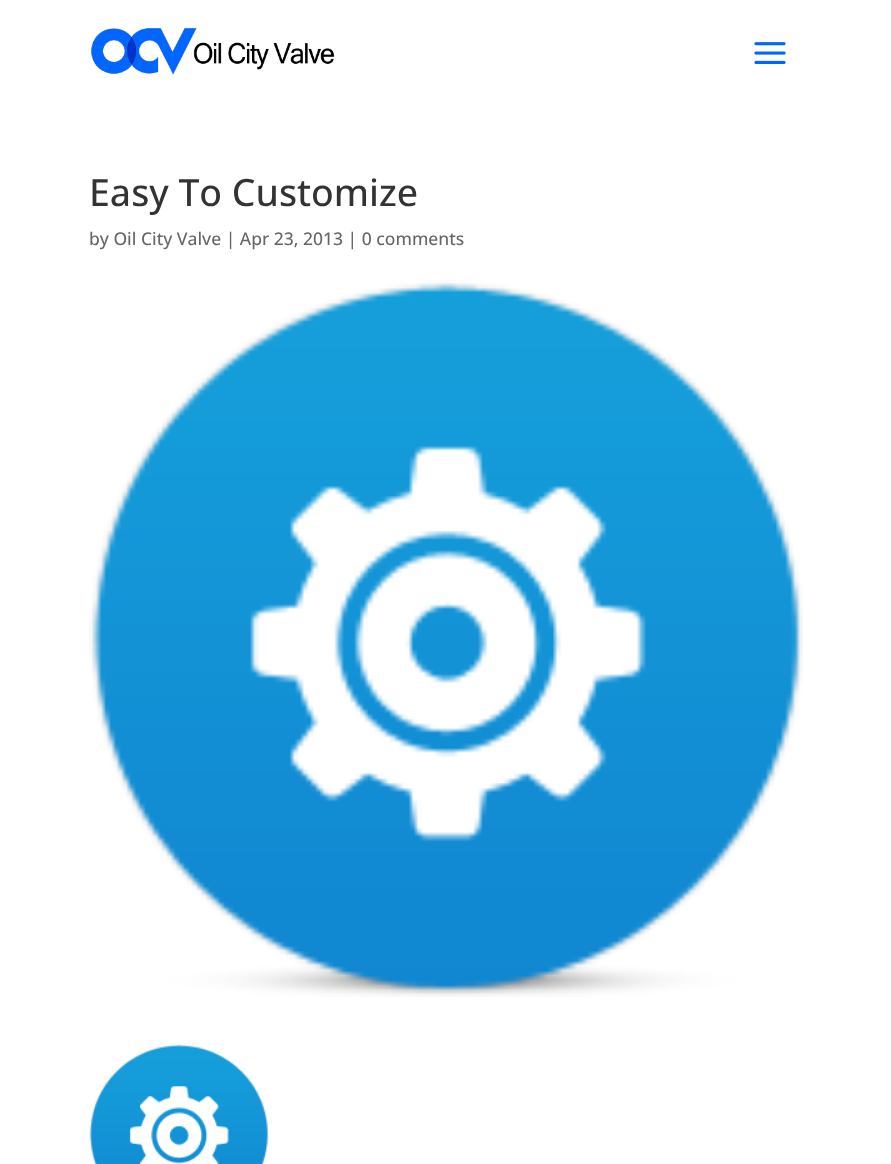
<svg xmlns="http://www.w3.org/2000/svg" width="891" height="1164">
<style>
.a{font:500 37.5px Open Sans;fill:#333}
.b{font:500 17.5px Open Sans;fill:#666}
</style>
<rect width="100%" height="100%" fill="#fff"/>
<image href="1.png" x="91" y="28" width="244" height="47"/>
<image href="2.png" x="754" y="42" width="32" height="22"/>
<image href="3.png" x="89" y="280" width="714" height="717"/>
<image href="4.png" x="89" y="1044" width="180" height="120"/>
<text class="a" x="89" y="206">Easy To Customize</text>
<text class="b" x="89" y="245">by Oil City Valve | Apr 23, 2013 | 0 comments</text>
</svg>
